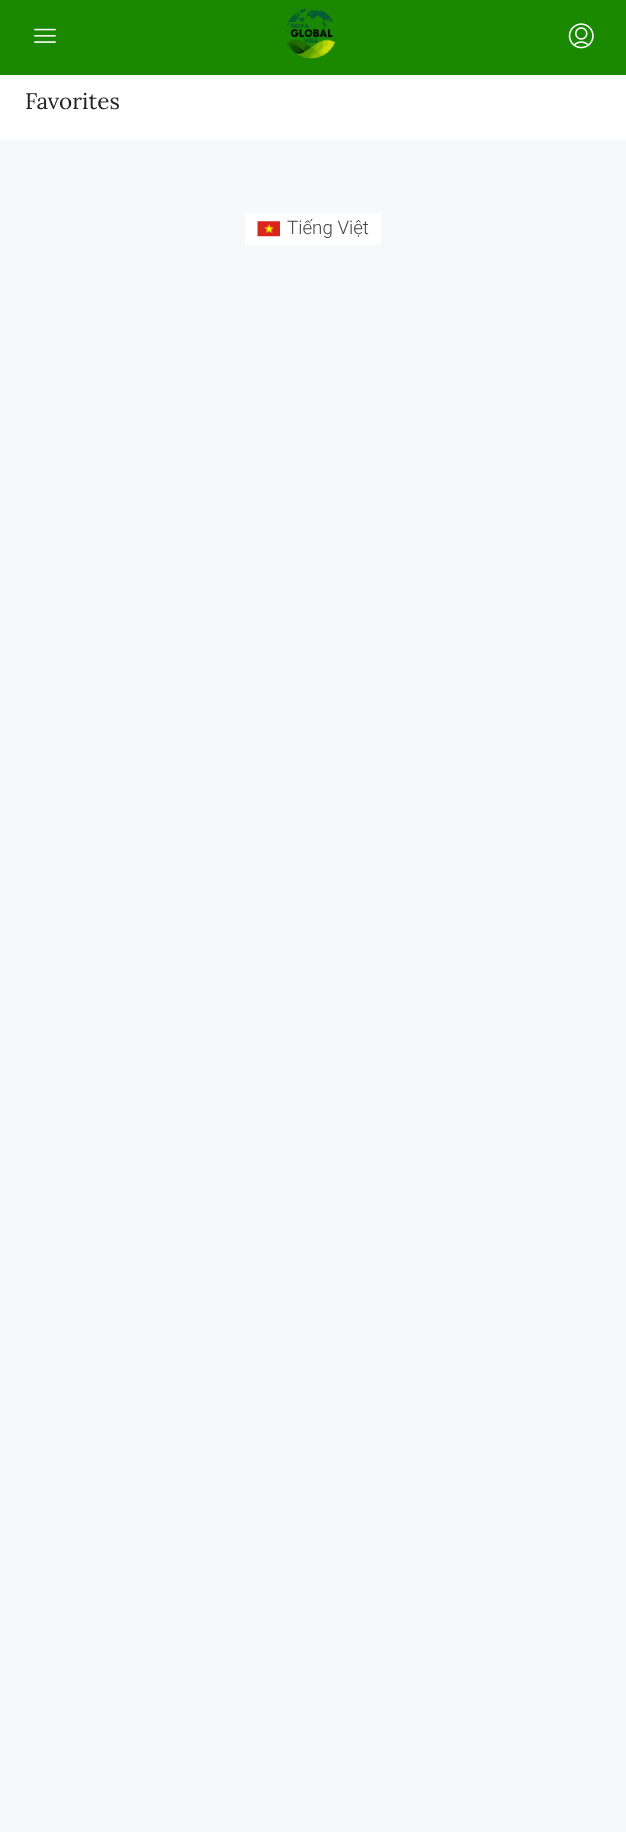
<svg xmlns="http://www.w3.org/2000/svg" width="626" height="1832">
<style>
.a{font:22.5px Lora;fill:#222}
.b{font:300 18.75px Roboto;fill:#444}
</style>
<rect width="100%" height="100%" fill="#f7f8f9"/>
<path fill="#1b8900" d="M0 0h626v75H0z"/>
<image href="1.png" x="34" y="28" width="22" height="15"/>
<image href="2.png" x="287" y="8" width="49" height="51"/>
<image href="3.png" x="568" y="23" width="26" height="26"/>
<path fill="#fff" d="M0 75h626v65H0z"/>
<path fill="#fff" d="M245 213h136v32H245z"/>
<image href="4.png" x="257" y="221" width="23" height="16"/>
<text class="a" x="25" y="109">Favorites</text>
<text class="b" x="287" y="234">Tiếng Việt</text>
</svg>
